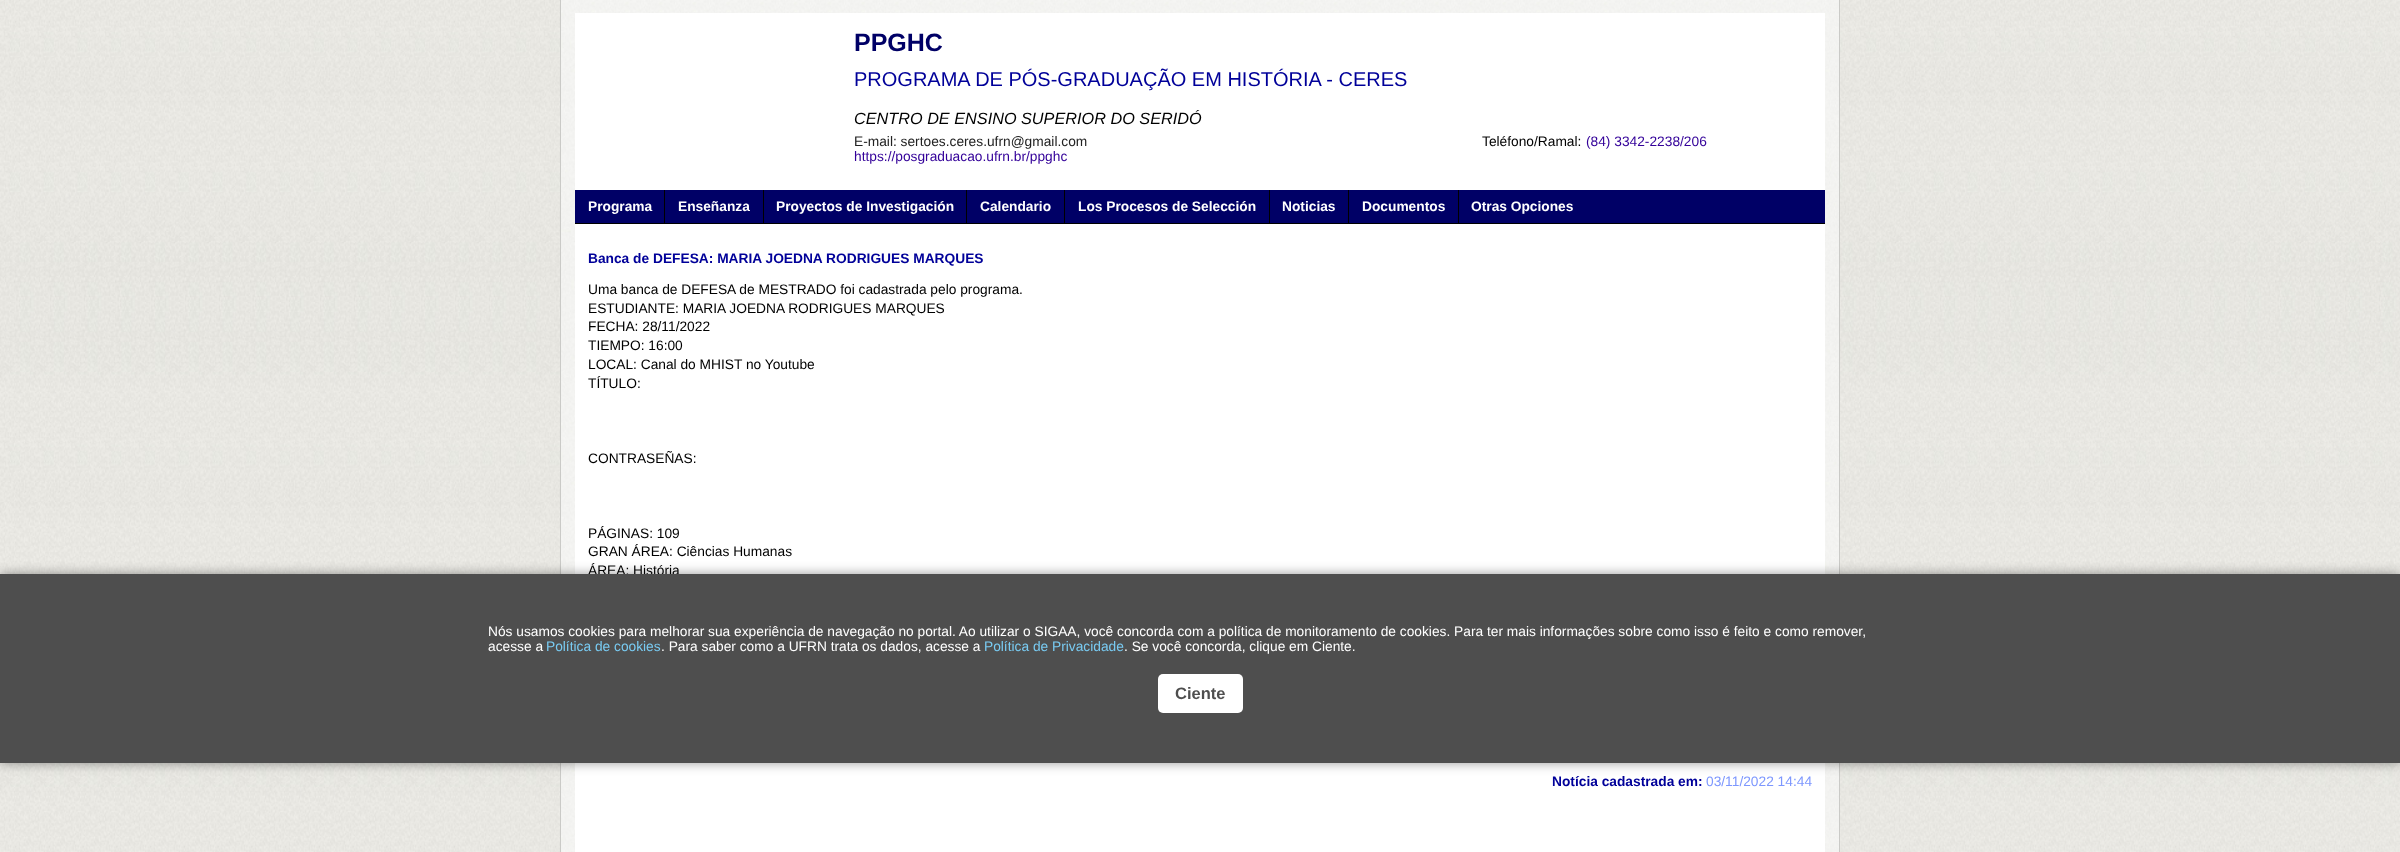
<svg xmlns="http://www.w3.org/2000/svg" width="2400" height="852">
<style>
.a{font:bold 25px Liberation Sans;fill:#006}
.b{font:20px Liberation Sans;fill:#009}
.c{font:italic 16.25px Liberation Sans;fill:#000}
.d{font:13.75px Liberation Sans;fill:#222}
.e{font:13.75px Liberation Sans;fill:#000}
.f{font:13.75px Liberation Sans;fill:#309}
.g{font:bold 13.75px Liberation Sans;fill:#fff}
.h{font:bold 13.75px Liberation Sans;fill:#009}
.i{font:13.75px Liberation Sans;fill:#7d97fe}
.j{font:13.75px Liberation Sans;fill:#fff}
.k{font:13.75px Liberation Sans;fill:#79cbf2}
.l{font:bold 16.5px Liberation Sans;fill:#4e4e4e}
</style>
<rect width="100%" height="100%" fill="#fff"/>
<image href="1.png" x="0" y="0" width="2400" height="852"/>
<image href="2.png" x="561" y="0" width="1278" height="852"/>
<path fill="#cacac7" d="M1839 0h1v852H1839z"/>
<path fill="#cacac7" d="M560 0h1v852H560z"/>
<path fill="#fff" d="M575 13h1250v839H575z"/>
<path fill="#006" d="M575 190h1250v33H575z"/>
<path fill="#000" d="M575 223h1250v1H575z"/>
<path fill="#000" d="M664 190h1v34H664z"/>
<path fill="#000" d="M763 190h1v34H763z"/>
<path fill="#000" d="M966 190h1v34H966z"/>
<path fill="#000" d="M1064 190h1v34H1064z"/>
<path fill="#000" d="M1269 190h1v34H1269z"/>
<path fill="#000" d="M1348 190h1v34H1348z"/>
<path fill="#000" d="M1458 190h1v34H1458z"/>
<path fill="#00000066" filter="blur(6px)" d="M0 574h2400v189H0z"/>
<text class="a" x="854" y="51">PPGHC</text>
<text class="b" x="854" y="86">PROGRAMA DE PÓS-GRADUAÇÃO EM HISTÓRIA - CERES</text>
<text class="c" x="854" y="124">CENTRO DE ENSINO SUPERIOR DO SERIDÓ</text>
<text class="d" x="854" y="146">E-mail: sertoes.ceres.ufrn@gmail.com</text>
<text class="e" x="1482" y="146">Teléfono/Ramal:</text>
<text class="f" x="1586" y="146">(84) 3342-2238/206</text>
<text class="f" x="854" y="161">https://posgraduacao.ufrn.br/ppghc</text>
<text class="g" x="588" y="211">Programa</text>
<text class="g" x="678" y="211">Enseñanza</text>
<text class="g" x="776" y="211">Proyectos de Investigación</text>
<text class="g" x="980" y="211">Calendario</text>
<text class="g" x="1078" y="211">Los Procesos de Selección</text>
<text class="g" x="1282" y="211">Noticias</text>
<text class="g" x="1362" y="211">Documentos</text>
<text class="g" x="1471" y="211">Otras Opciones</text>
<text class="h" x="588" y="263">Banca de DEFESA: MARIA JOEDNA RODRIGUES MARQUES</text>
<text class="e" x="588" y="294">Uma banca de DEFESA de MESTRADO foi cadastrada pelo programa.</text>
<text class="e" x="588" y="313">ESTUDIANTE: MARIA JOEDNA RODRIGUES MARQUES</text>
<text class="e" x="588" y="331">FECHA: 28/11/2022</text>
<text class="e" x="588" y="350">TIEMPO: 16:00</text>
<text class="e" x="588" y="369">LOCAL: Canal do MHIST no Youtube</text>
<text class="e" x="588" y="388">TÍTULO:</text>
<text class="e" x="588" y="463">CONTRASEÑAS:</text>
<text class="e" x="588" y="538">PÁGINAS: 109</text>
<text class="e" x="588" y="556">GRAN ÁREA: Ciências Humanas</text>
<text class="e" x="588" y="575">ÁREA: História</text>
<text class="h" x="1552" y="786">Notícia cadastrada em:</text>
<text class="i" x="1706" y="786">03/11/2022 14:44</text>
<path fill="#4e4e4e" d="M0 574h2400v189H0z"/>
<text class="j" x="488" y="636">Nós usamos cookies para melhorar sua experiência de navegação no portal. Ao utilizar o SIGAA, você concorda com a política de monitoramento de cookies. Para ter mais informações sobre como isso é feito e como remover,</text>
<text class="j" x="488" y="651">acesse a</text>
<text class="k" x="546" y="651">Política de cookies</text>
<text class="j" x="661" y="651">. Para saber como a UFRN trata os dados, acesse a</text>
<text class="k" x="984" y="651">Política de Privacidade</text>
<text class="j" x="1124" y="651">. Se você concorda, clique em Ciente.</text>
<rect fill="#fff" x="1158" y="674" width="85" height="39" rx="5"/>
<text class="l" x="1175" y="699">Ciente</text>
</svg>
